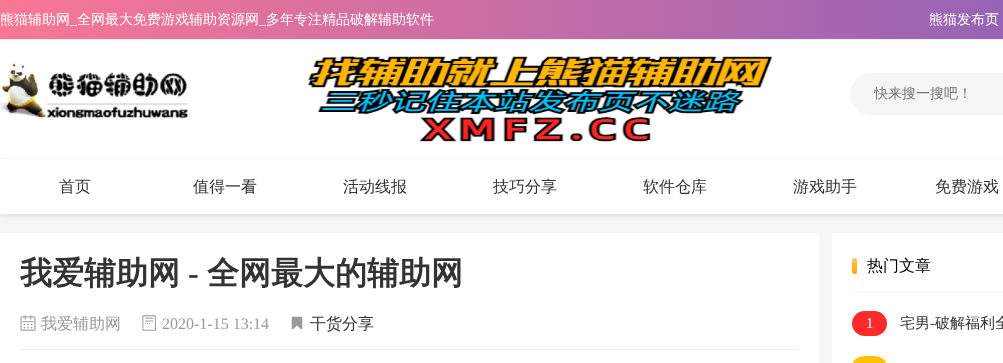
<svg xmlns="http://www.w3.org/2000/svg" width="1003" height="363">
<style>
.a{font:500 14px WenQuanYi Zen Hei;fill:#fff}
.b{font:14px Liberation Serif;fill:#fff}
.c{font:500 14px WenQuanYi Zen Hei;fill:#757575}
.d{font:500 16px WenQuanYi Zen Hei;fill:#333}
.e{font:bold 32px WenQuanYi Zen Hei;fill:#333}
.f{font:bold 32px Liberation Serif;fill:#333}
.g{font:500 16px WenQuanYi Zen Hei;fill:#9a9a9a}
.h{font:16px Liberation Serif;fill:#9a9a9a}
.i{font:500 16px WenQuanYi Zen Hei;fill:#000}
.j{font:15px Liberation Serif;fill:#fff}
.k{font:500 15px WenQuanYi Zen Hei;fill:#333}
.l{font:15px Liberation Serif;fill:#333}
</style>
<defs>
<linearGradient id="g1" gradientUnits="userSpaceOnUse" x1="0" y1="20" x2="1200" y2="19"><stop offset="0" stop-color="#f97794"/><stop offset="1" stop-color="#8360bc"/></linearGradient>
<linearGradient id="g2" gradientUnits="userSpaceOnUse" x1="855" y1="258" x2="855" y2="274"><stop offset="0" stop-color="#ffc55d"/><stop offset="1" stop-color="#ffa400"/></linearGradient>
</defs>
<rect width="100%" height="100%" fill="#f6f6f6"/>
<path fill="url(#g1)" d="M0 0h1003v39H0z"/>
<path fill="#f0f0f0" d="M0 39h1003v1H0z"/>
<path fill="#fff" d="M0 40h1003v118H0z"/>
<image href="1.png" x="0" y="63" width="188" height="56"/>
<image href="2.png" x="307" y="56" width="466" height="86"/>
<rect fill="#f6f6f6" x="850" y="73" width="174" height="42" rx="21"/>
<path fill="#1a1a1a1a" filter="blur(2px)" d="M0 161h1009v55H0z"/>
<path fill="#fff" d="M0 158h1v55H0z"/>
<rect fill="#fff" y="158" width="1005" height="56" rx="2"/>
<path fill="#f6f6f6" d="M1 158h1002v1H1z"/>
<path fill="#fff" d="M0 233h819v130H0z"/>
<image href="3.png" x="20" y="315" width="16" height="16"/>
<image href="4.png" x="142" y="315" width="14" height="16"/>
<image href="5.png" x="291" y="316" width="12" height="14"/>
<path fill="#f0f0f0" d="M20 349h779v1H20z"/>
<path fill="#fff" d="M832 233h171v130H832z"/>
<path fill="#f6f6f6" d="M852 292h151v1H852z"/>
<rect fill="url(#g2)" x="852" y="258" width="5" height="16" rx="2.5"/>
<rect fill="#ff2a2a" x="852" y="311" width="35" height="25" rx="12.5"/>
<rect fill="#ffc107" x="852" y="356" width="35" height="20" rx="12.5"/>
<text class="a" x="0" y="24">熊猫辅助网</text>
<text class="b" x="70" y="24">_</text>
<text class="a" x="77" y="24">全网最大免费游戏辅助资源网</text>
<text class="b" x="259" y="24">_</text>
<text class="a" x="266" y="24">多年专注精品破解辅助软件</text>
<text class="a" x="929" y="24">熊猫发布页</text>
<text class="c" x="874" y="98">快来搜一搜吧！</text>
<text class="d" x="59" y="192">首页</text>
<text class="d" x="193" y="192">值得一看</text>
<text class="d" x="343" y="192">活动线报</text>
<text class="d" x="493" y="192">技巧分享</text>
<text class="d" x="643" y="192">软件仓库</text>
<text class="d" x="793" y="192">游戏助手</text>
<text class="d" x="935" y="192">免费游戏</text>
<text class="e" x="20" y="284">我爱辅助网</text>
<text class="f" x="188" y="284">-</text>
<text class="e" x="207" y="284">全网最大的辅助网</text>
<text class="g" x="41" y="329">我爱辅助网</text>
<text class="h" x="162" y="329">2020-1-15 13:14</text>
<text class="d" x="310" y="329">干货分享</text>
<text class="i" x="867" y="271">热门文章</text>
<text class="j" x="866" y="328">1</text>
<text class="k" x="900" y="328">宅男</text>
<text class="l" x="930" y="328">-</text>
<text class="k" x="935" y="328">破解福利全</text>
</svg>
